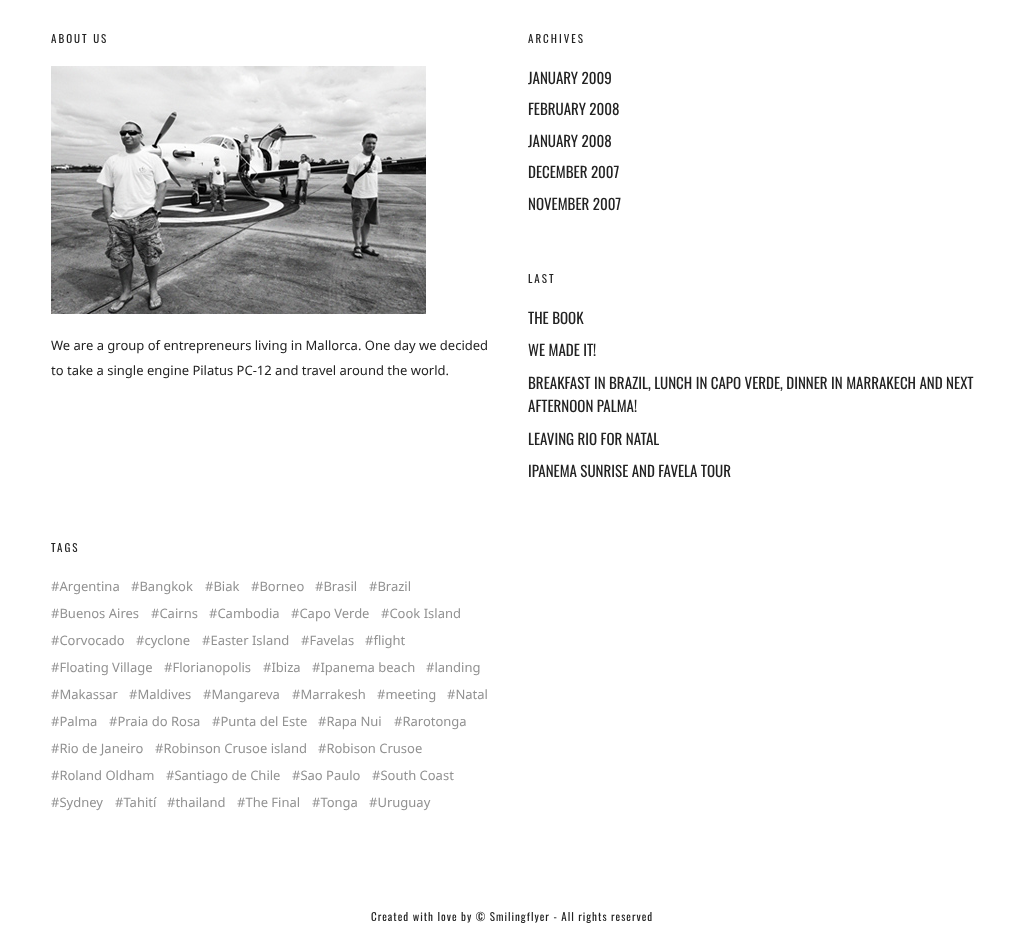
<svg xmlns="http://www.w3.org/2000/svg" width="1025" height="949">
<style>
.a{font:11px Oswald;letter-spacing:2px;fill:#222}
.b{font:13px Noto Sans;fill:#222}
.c{font:15px Oswald;fill:#222}
.d{font:13px Noto Sans;fill:#919191}
.e{font:11px Oswald;letter-spacing:1px;fill:#222}
</style>
<rect width="100%" height="100%" fill="#fff"/>
<image href="1.png" x="51" y="66" width="376" height="248"/>
<text class="a" x="51" y="43">ABOUT US</text>
<text class="b" x="51" y="350">We are a group of entrepreneurs living in Mallorca. One day we decided</text>
<text class="b" x="51" y="375">to take a single engine Pilatus PC-12 and travel around the world.</text>
<text class="a" x="528" y="43">ARCHIVES</text>
<text class="c" x="528" y="84">JANUARY 2009</text>
<text class="c" x="528" y="115">FEBRUARY 2008</text>
<text class="c" x="528" y="147">JANUARY 2008</text>
<text class="c" x="528" y="178">DECEMBER 2007</text>
<text class="c" x="528" y="210">NOVEMBER 2007</text>
<text class="a" x="528" y="283">LAST</text>
<text class="c" x="528" y="324">THE BOOK</text>
<text class="c" x="528" y="356">WE MADE IT!</text>
<text class="c" x="528" y="389">BREAKFAST IN BRAZIL, LUNCH IN CAPO VERDE, DINNER IN MARRAKECH AND NEXT</text>
<text class="c" x="528" y="412">AFTERNOON PALMA!</text>
<text class="c" x="528" y="445">LEAVING RIO FOR NATAL</text>
<text class="c" x="528" y="477">IPANEMA SUNRISE AND FAVELA TOUR</text>
<text class="a" x="51" y="552">TAGS</text>
<text class="d" x="51" y="591">#Argentina</text>
<text class="d" x="131" y="591">#Bangkok</text>
<text class="d" x="205" y="591">#Biak</text>
<text class="d" x="251" y="591">#Borneo</text>
<text class="d" x="315" y="591">#Brasil</text>
<text class="d" x="369" y="591">#Brazil</text>
<text class="d" x="51" y="618">#Buenos Aires</text>
<text class="d" x="151" y="618">#Cairns</text>
<text class="d" x="209" y="618">#Cambodia</text>
<text class="d" x="291" y="618">#Capo Verde</text>
<text class="d" x="381" y="618">#Cook Island</text>
<text class="d" x="51" y="645">#Corvocado</text>
<text class="d" x="136" y="645">#cyclone</text>
<text class="d" x="202" y="645">#Easter Island</text>
<text class="d" x="301" y="645">#Favelas</text>
<text class="d" x="365" y="645">#flight</text>
<text class="d" x="51" y="672">#Floating Village</text>
<text class="d" x="164" y="672">#Florianopolis</text>
<text class="d" x="263" y="672">#Ibiza</text>
<text class="d" x="312" y="672">#Ipanema beach</text>
<text class="d" x="426" y="672">#landing</text>
<text class="d" x="51" y="699">#Makassar</text>
<text class="d" x="129" y="699">#Maldives</text>
<text class="d" x="203" y="699">#Mangareva</text>
<text class="d" x="292" y="699">#Marrakesh</text>
<text class="d" x="377" y="699">#meeting</text>
<text class="d" x="447" y="699">#Natal</text>
<text class="d" x="51" y="726">#Palma</text>
<text class="d" x="109" y="726">#Praia do Rosa</text>
<text class="d" x="212" y="726">#Punta del Este</text>
<text class="d" x="318" y="726">#Rapa Nui</text>
<text class="d" x="394" y="726">#Rarotonga</text>
<text class="d" x="51" y="753">#Rio de Janeiro</text>
<text class="d" x="155" y="753">#Robinson Crusoe island</text>
<text class="d" x="318" y="753">#Robison Crusoe</text>
<text class="d" x="51" y="780">#Roland Oldham</text>
<text class="d" x="166" y="780">#Santiago de Chile</text>
<text class="d" x="292" y="780">#Sao Paulo</text>
<text class="d" x="372" y="780">#South Coast</text>
<text class="d" x="51" y="807">#Sydney</text>
<text class="d" x="115" y="807">#Tahití</text>
<text class="d" x="167" y="807">#thailand</text>
<text class="d" x="237" y="807">#The Final</text>
<text class="d" x="312" y="807">#Tonga</text>
<text class="d" x="369" y="807">#Uruguay</text>
<text class="e" x="371" y="921">Created with love by © Smilingflyer - All rights reserved</text>
</svg>
